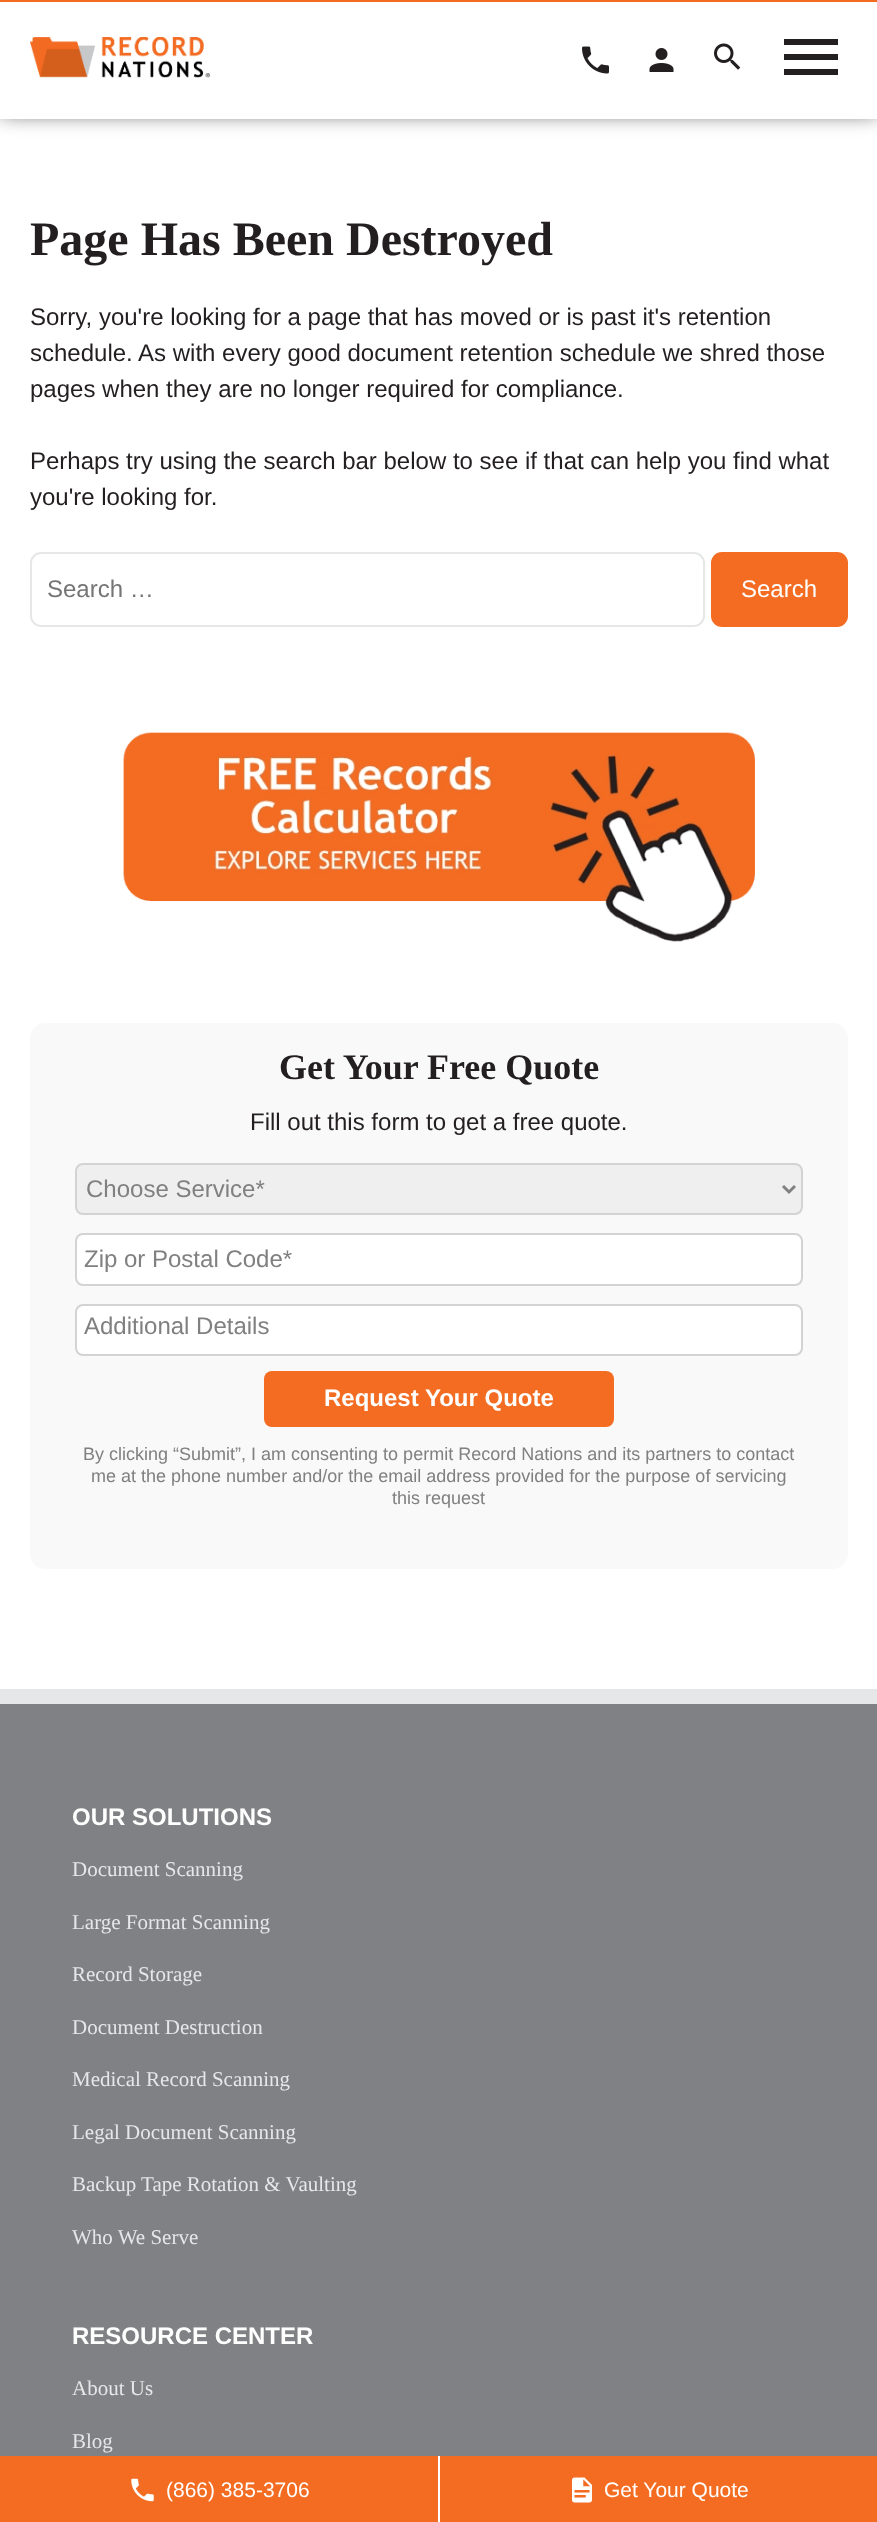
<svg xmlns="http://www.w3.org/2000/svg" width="877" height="2522">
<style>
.a{font:bold 48px Liberation Serif;fill:#231f20}
.b{font:24px Liberation Sans;fill:#231f20}
.c{font:24px Liberation Sans;fill:#757575}
.d{font:24px Liberation Sans;fill:#fff}
.e{font:bold 36px Liberation Serif;fill:#231f20}
.f{font:24px Liberation Sans;fill:#808080}
.g{font:bold 24px Liberation Sans;fill:#fff}
.h{font:18px Liberation Sans;fill:#808080}
.i{font:21px Liberation Serif;fill:#e6e7e8}
.j{font:21px Liberation Sans;fill:#fff}
</style>
<rect width="100%" height="100%" fill="#fff"/>
<path fill="#231f20" filter="blur(11px)" d="M0 -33h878v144H0z"/>
<path fill="#f36c21" d="M0 0h877v2H0z"/>
<path fill="#fff" d="M0 2h877v117H0z"/>
<image href="1.png" x="30" y="37" width="180" height="41"/>
<image href="2.png" x="582" y="46" width="27" height="28"/>
<image href="3.png" x="649" y="48" width="25" height="24"/>
<image href="4.png" x="714" y="43" width="27" height="27"/>
<path fill="#231f20" d="M784 39h54v6h-54v-6m0 15h54v6h-54v-6m0 15h54v6h-54z"/>
<rect fill="none" stroke="#e6e7e8" stroke-width="2" x="31" y="553" width="673" height="73" rx="10"/>
<rect fill="#f36c21" x="711" y="552" width="137" height="75" rx="11"/>
<image href="5.png" x="123" y="732" width="632" height="210"/>
<rect fill="#f9f9f9" x="30" y="1023" width="818" height="546" rx="15"/>
<rect fill="#efefef" stroke="#d3d3d3" stroke-width="2" x="76" y="1164" width="726" height="50" rx="7"/>
<path fill="none" stroke="#808080" stroke-width="3" d="M783 1186l6 6l6-6"/>
<rect fill="#fff" stroke="#d3d3d3" stroke-width="2" x="76" y="1234" width="726" height="51" rx="7"/>
<rect fill="#fff" stroke="#d3d3d3" stroke-width="2" x="76" y="1305" width="726" height="50" rx="7"/>
<rect fill="#f36c21" x="264" y="1371" width="350" height="56" rx="8"/>
<path fill="#808184" d="M0 1704h877v752H0z"/>
<path fill="#e6e7e8" d="M0 1689h877v15H0z"/>
<path fill="#f36c21" d="M0 2456h877v66H0z"/>
<path fill="#fff" d="M438 2456h2v66H438z"/>
<image href="6.png" x="131" y="2478" width="23" height="24"/>
<image href="7.png" x="572" y="2477" width="20" height="26"/>
<text class="a" x="30" y="255">Page Has Been Destroyed</text>
<text class="b" x="30" y="325">Sorry, you're looking for a page that has moved or is past it's retention</text>
<text class="b" x="30" y="361">schedule. As with every good document retention schedule we shred those</text>
<text class="b" x="30" y="397">pages when they are no longer required for compliance.</text>
<text class="b" x="30" y="469">Perhaps try using the search bar below to see if that can help you find what</text>
<text class="b" x="30" y="505">you're looking for.</text>
<text class="c" x="47" y="597">Search …</text>
<text class="d" x="741" y="597">Search</text>
<text class="e" x="279" y="1079">Get Your Free Quote</text>
<text class="b" x="250" y="1130">Fill out this form to get a free quote.</text>
<text class="f" x="86" y="1197">Choose Service*</text>
<text class="f" x="84" y="1267">Zip or Postal Code*</text>
<text class="f" x="84" y="1334">Additional Details</text>
<text class="g" x="324" y="1406">Request Your Quote</text>
<text class="h" x="83" y="1460">By clicking “Submit”, I am consenting to permit Record Nations and its partners to contact</text>
<text class="h" x="91" y="1482">me at the phone number and/or the email address provided for the purpose of servicing</text>
<text class="h" x="392" y="1504">this request</text>
<text class="g" x="72" y="1825">OUR SOLUTIONS</text>
<text class="i" x="72" y="1876">Document Scanning</text>
<text class="i" x="72" y="1929">Large Format Scanning</text>
<text class="i" x="72" y="1981">Record Storage</text>
<text class="i" x="72" y="2034">Document Destruction</text>
<text class="i" x="72" y="2086">Medical Record Scanning</text>
<text class="i" x="72" y="2139">Legal Document Scanning</text>
<text class="i" x="72" y="2191">Backup Tape Rotation &amp; Vaulting</text>
<text class="i" x="72" y="2244">Who We Serve</text>
<text class="g" x="72" y="2344">RESOURCE CENTER</text>
<text class="i" x="72" y="2395">About Us</text>
<text class="i" x="72" y="2448">Blog</text>
<text class="j" x="166" y="2497">(866) 385-3706</text>
<text class="j" x="604" y="2497">Get Your Quote</text>
</svg>
